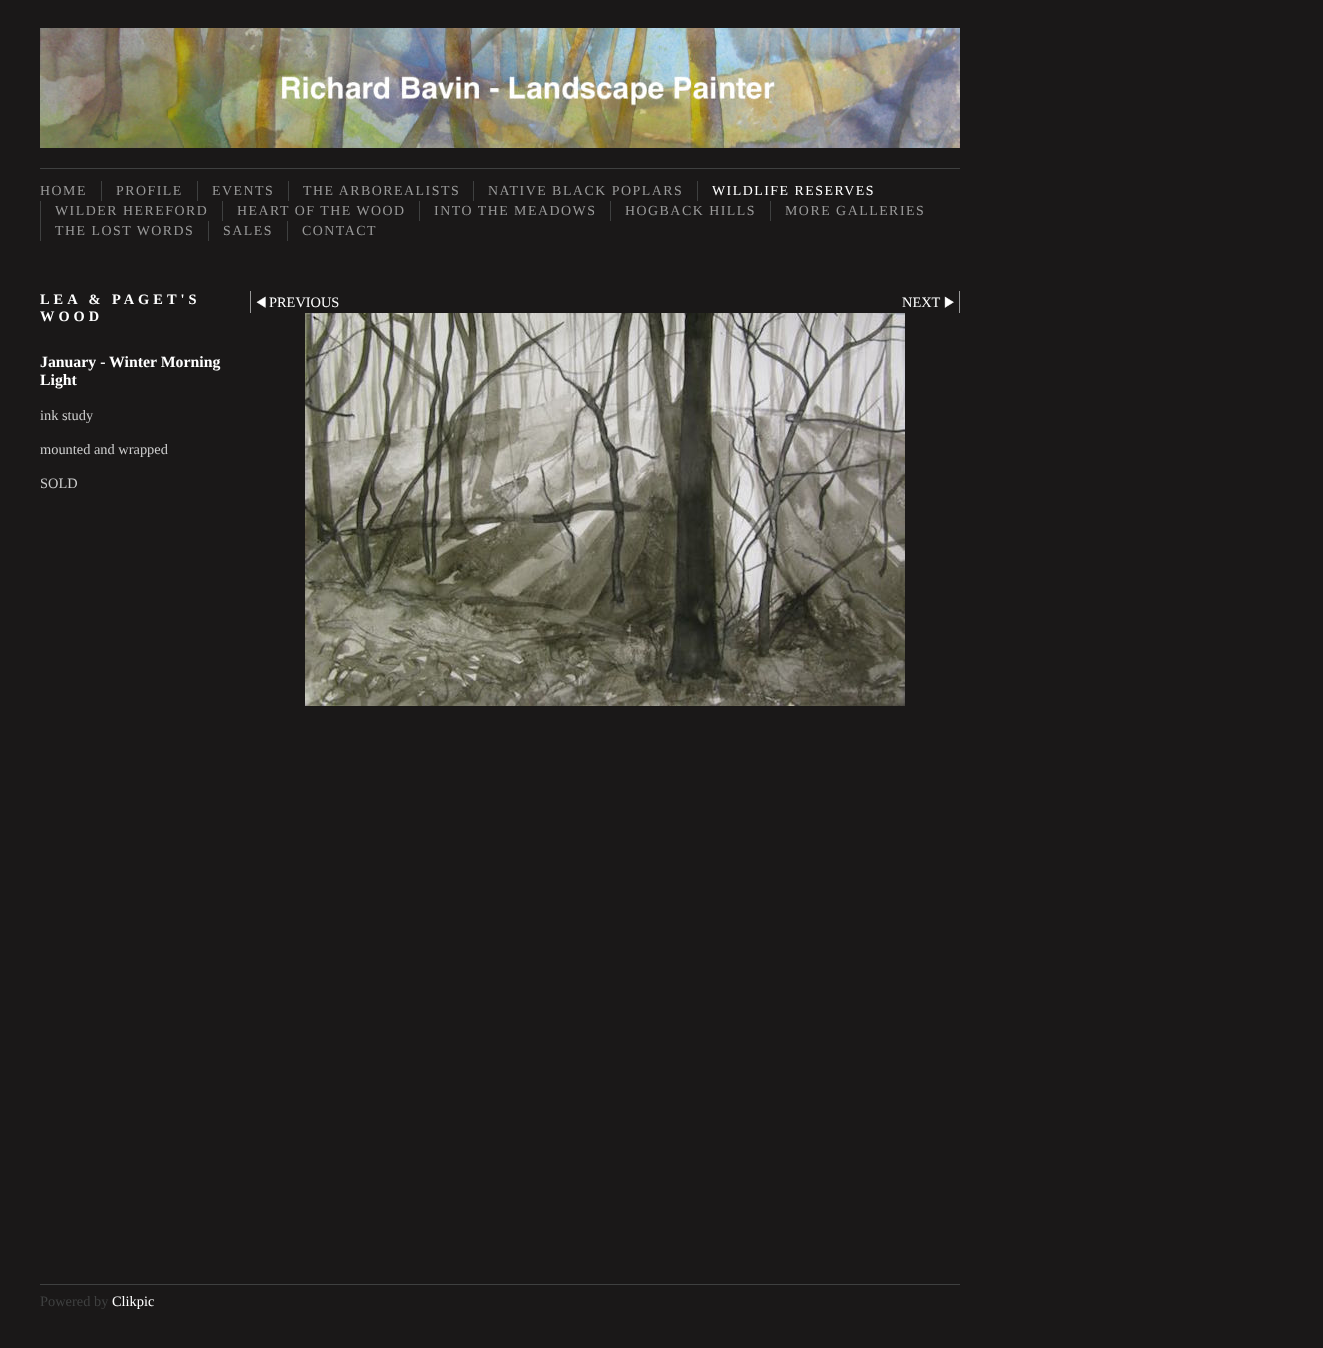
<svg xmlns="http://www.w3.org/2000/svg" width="1323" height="1348">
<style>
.a{font:13.9px Liberation Serif;letter-spacing:1.5px;fill:#999}
.b{font:13.9px Liberation Serif;letter-spacing:1.5px;fill:#fff}
.c{font:bold 14.4px Liberation Serif;letter-spacing:4px;fill:#fff}
.d{font:bold 15.8px Liberation Serif;fill:#fff}
.e{font:14.4px Liberation Serif;fill:#ccc}
.f{font:14.4px Liberation Serif;fill:#fff}
.g{font:14.4px Liberation Serif;fill:#3f4040}
</style>
<rect width="100%" height="100%" fill="#1a1818"/>
<path fill="#3f4040" d="M40 168h920v1H40z"/>
<image href="1.png" x="40" y="28" width="920" height="120"/>
<path fill="#3f4040" d="M101 181h1v20H101z"/>
<path fill="#3f4040" d="M197 181h1v20H197z"/>
<path fill="#3f4040" d="M288 181h1v20H288z"/>
<path fill="#3f4040" d="M473 181h1v20H473z"/>
<path fill="#3f4040" d="M697 181h1v20H697z"/>
<path fill="#3f4040" d="M40 201h1v40H40z"/>
<path fill="#3f4040" d="M222 201h1v20H222z"/>
<path fill="#3f4040" d="M419 201h1v20H419z"/>
<path fill="#3f4040" d="M610 201h1v20H610z"/>
<path fill="#3f4040" d="M770 201h1v20H770z"/>
<path fill="#3f4040" d="M208 221h1v20H208z"/>
<path fill="#3f4040" d="M287 221h1v20H287z"/>
<path fill="#999" d="M250 291h1v22H250z"/>
<image href="2.png" x="256" y="296" width="10" height="12"/>
<path fill="#999" d="M959 291h1v22H959z"/>
<image href="3.png" x="944" y="296" width="10" height="12"/>
<image href="4.png" x="305" y="313" width="600" height="393"/>
<path fill="#3f4040" d="M40 1284h920v1H40z"/>
<text class="a" x="40" y="195">HOME</text>
<text class="a" x="116" y="195">PROFILE</text>
<text class="a" x="212" y="195">EVENTS</text>
<text class="a" x="303" y="195">THE ARBOREALISTS</text>
<text class="a" x="488" y="195">NATIVE BLACK POPLARS</text>
<text class="b" x="712" y="195">WILDLIFE RESERVES</text>
<text class="a" x="55" y="215">WILDER HEREFORD</text>
<text class="a" x="237" y="215">HEART OF THE WOOD</text>
<text class="a" x="434" y="215">INTO THE MEADOWS</text>
<text class="a" x="625" y="215">HOGBACK HILLS</text>
<text class="a" x="785" y="215">MORE GALLERIES</text>
<text class="a" x="55" y="235">THE LOST WORDS</text>
<text class="a" x="223" y="235">SALES</text>
<text class="a" x="302" y="235">CONTACT</text>
<text class="c" x="40" y="304">LEA &amp; PAGET'S</text>
<text class="c" x="40" y="321">WOOD</text>
<text class="d" x="40" y="367">January - Winter Morning</text>
<text class="d" x="40" y="385">Light</text>
<text class="e" x="40" y="420">ink study</text>
<text class="e" x="40" y="454">mounted and wrapped</text>
<text class="e" x="40" y="488">SOLD</text>
<text class="f" x="269" y="307">PREVIOUS</text>
<text class="f" x="902" y="307">NEXT</text>
<text class="g" x="40" y="1306">Powered by</text>
<text class="f" x="112" y="1306">Clikpic</text>
</svg>
